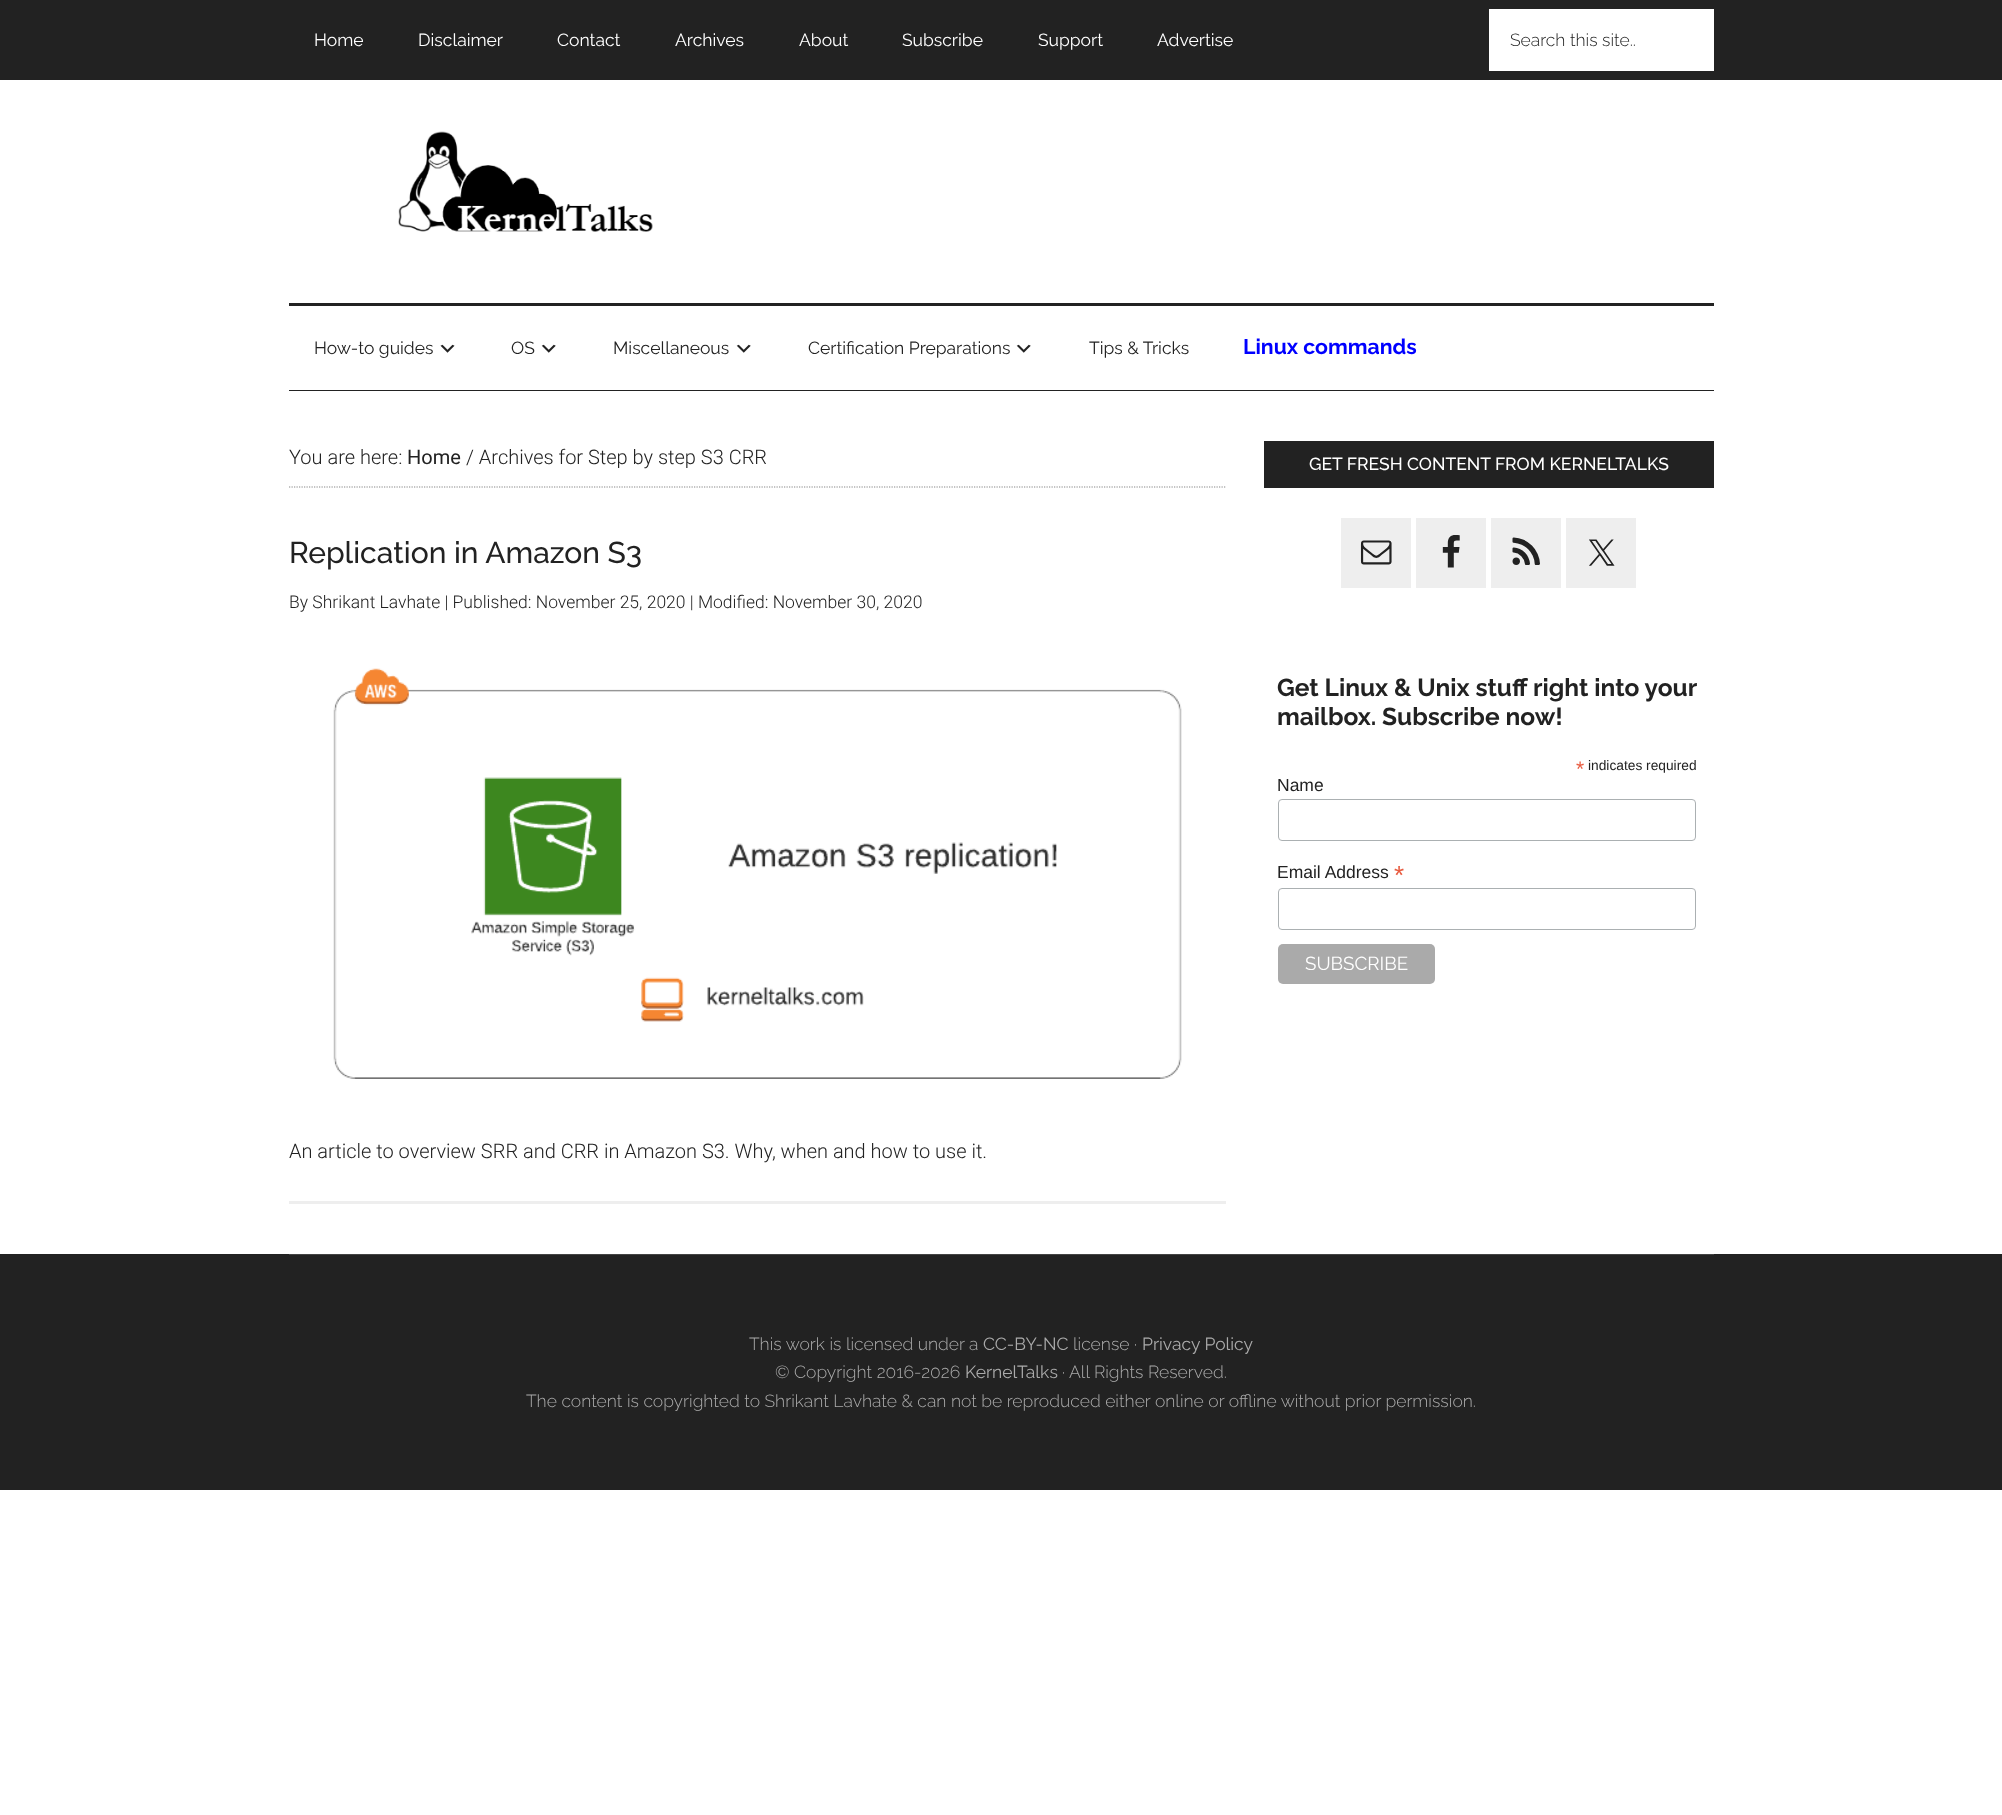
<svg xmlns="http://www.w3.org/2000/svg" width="2002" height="1815">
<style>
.a{font:17.5px Raleway;fill:#fff}
.b{font:300 17.5px Raleway;fill:#222}
.c{font:17.5px Raleway;fill:#222}
.d{font:bold 21.25px Raleway;fill:#00f}
.e{font:300 20px Roboto;fill:#222}
.f{font:20px Roboto;fill:#222}
.g{font:500 30px Raleway;fill:#222}
.h{font:300 17.5px Roboto;fill:#222}
.i{font:500 17.5px Raleway;fill:#fff}
.j{font:bold 24.5px Raleway;fill:#222}
.k{font:21px Liberation Sans;fill:#e85c41}
.l{font:13.75px Liberation Sans;fill:#222}
.m{font:17.5px Liberation Sans;fill:#222}
.n{font:26px Liberation Sans;fill:#e85c41}
.o{font:18.75px Raleway;fill:#fff}
.p{font:300 17.5px Raleway;fill:#aaa}
.q{font:17.5px Raleway;fill:#aaa}
</style>
<rect width="100%" height="100%" fill="#fff"/>
<path fill="#222" d="M0 0h2002v80H0z"/>
<path fill="#fff" d="M1489 9h225v62H1489z"/>
<path fill="#222" d="M289 303h1425v3H289z"/>
<image href="1.png" x="398" y="131" width="255" height="101"/>
<path fill="#222" d="M289 390h1425v1H289z"/>
<image href="2.png" x="440" y="344" width="15" height="9"/>
<image href="3.png" x="541" y="344" width="15" height="9"/>
<image href="3.png" x="736" y="344" width="15" height="9"/>
<image href="3.png" x="1016" y="344" width="15" height="9"/>
<path fill="none" stroke="#888" stroke-width="1.2" stroke-dasharray="1.25 1.25" d="M289 487h937"/>
<path fill="#eee" d="M289 1201h937v3H289z"/>
<image href="4.png" x="333" y="668" width="849" height="411"/>
<path fill="#222" d="M1264 441h450v47H1264z"/>
<path fill="#eee" d="M1341 518h70v70H1341z"/>
<image href="5.png" x="1360" y="540" width="32" height="25"/>
<path fill="#eee" d="M1416 518h70v70H1416z"/>
<image href="6.png" x="1442" y="535" width="18" height="33"/>
<path fill="#eee" d="M1491 518h70v70H1491z"/>
<image href="7.png" x="1512" y="537" width="28" height="28"/>
<path fill="#eee" d="M1566 518h70v70H1566z"/>
<image href="8.png" x="1589" y="539" width="26" height="27"/>
<rect fill="none" stroke="#abb0b2" x="1278.5" y="799.5" width="417" height="41" rx="3.5"/>
<rect fill="none" stroke="#abb0b2" x="1278.5" y="888.5" width="417" height="41" rx="3.5"/>
<rect fill="#aaa" x="1278" y="944" width="157" height="40" rx="5"/>
<path fill="#222" d="M0 1254h2002v236H0z"/>
<path fill="#444" d="M289 1254h1425v1H289z"/>
<text class="a" x="314" y="46">Home</text>
<text class="a" x="418" y="46">Disclaimer</text>
<text class="a" x="557" y="46">Contact</text>
<text class="a" x="675" y="46">Archives</text>
<text class="a" x="799" y="46">About</text>
<text class="a" x="902" y="46">Subscribe</text>
<text class="a" x="1038" y="46">Support</text>
<text class="a" x="1157" y="46">Advertise</text>
<text class="b" x="1510" y="46">Search this site..</text>
<text class="c" x="314" y="354">How-to guides</text>
<text class="c" x="511" y="354">OS</text>
<text class="c" x="613" y="354">Miscellaneous</text>
<text class="c" x="808" y="354">Certification Preparations</text>
<text class="c" x="1089" y="354">Tips &amp; Tricks</text>
<text class="d" x="1243" y="354">Linux commands</text>
<text class="e" x="289" y="464">You are here:</text>
<text class="f" x="407" y="464">Home</text>
<text class="e" x="466" y="464">/ Archives for Step by step S3 CRR</text>
<text class="g" x="289" y="563">Replication in Amazon S3</text>
<text class="h" x="289" y="608">By Shrikant Lavhate | Published: November 25, 2020 | Modified: November 30, 2020</text>
<text class="e" x="289" y="1158">An article to overview SRR and CRR in Amazon S3. Why, when and how to use it.</text>
<text class="i" x="1309" y="470">GET FRESH CONTENT FROM KERNELTALKS</text>
<text class="j" x="1277" y="696">Get Linux &amp; Unix stuff right into your</text>
<text class="j" x="1277" y="725">mailbox. Subscribe now!</text>
<text class="k" x="1576" y="776">*</text>
<text class="l" x="1588" y="770">indicates required</text>
<text class="m" x="1277" y="791">Name</text>
<text class="m" x="1277" y="878">Email Address</text>
<text class="n" x="1394" y="884">*</text>
<text class="o" x="1305" y="970">SUBSCRIBE</text>
<text class="p" x="749" y="1350">This work is licensed under a</text>
<text class="q" x="983" y="1350">CC-BY-NC</text>
<text class="p" x="1073" y="1350">license ·</text>
<text class="q" x="1142" y="1350">Privacy Policy</text>
<text class="p" x="775" y="1378">© Copyright 2016-2026</text>
<text class="q" x="965" y="1378">KernelTalks</text>
<text class="p" x="1062" y="1378">· All Rights Reserved.</text>
<text class="p" x="526" y="1407">The content is copyrighted to Shrikant Lavhate &amp; can not be reproduced either online or offline without prior permission.</text>
</svg>
